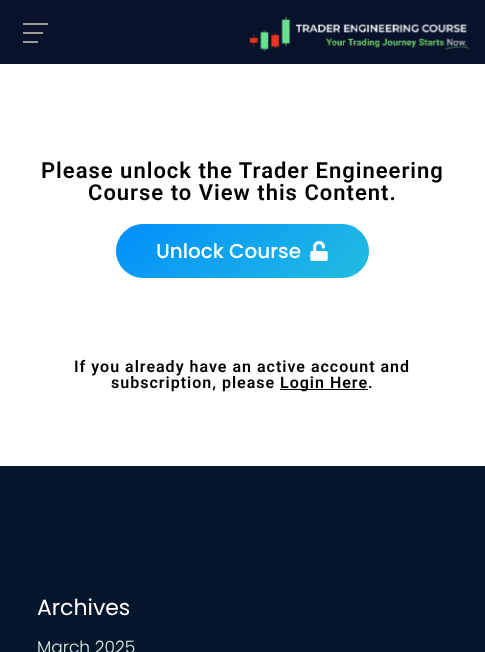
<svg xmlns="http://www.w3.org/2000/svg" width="485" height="652">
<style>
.a{font:600 22px Roboto;letter-spacing:1px;fill:#000}
.b{font:500 20px Poppins;fill:#fff}
.c{font:600 16px Roboto;letter-spacing:1px;fill:#000}
.d{font:22px Poppins;fill:#fff}
.e{font:300 17px Poppins;fill:#dcebe4}
</style>
<defs>
<linearGradient id="g1" gradientUnits="userSpaceOnUse" x1="177" y1="173" x2="308" y2="329"><stop offset="0" stop-color="#008ffc"/><stop offset="1" stop-color="#23bde0"/></linearGradient>
</defs>
<rect width="100%" height="100%" fill="#fff"/>
<path fill="#08132b" d="M0 0h485v64H0z"/>
<path fill="#999" d="M23 23h25v2H23z"/>
<path fill="#999" d="M23 32h20v2H23z"/>
<path fill="#999" d="M23 41h15v2H23z"/>
<image href="1.png" x="250" y="17" width="220" height="35"/>
<rect fill="url(#g1)" x="116" y="224" width="253" height="54" rx="27"/>
<image href="2.png" x="310" y="241" width="18" height="20"/>
<path fill="#000" d="M280 389h88v1H280z"/>
<path fill="#05152c" d="M0 466h485v186H0z"/>
<text class="a" x="41" y="178">Please unlock the Trader Engineering</text>
<text class="a" x="88" y="200">Course to View this Content.</text>
<text class="b" x="156" y="258">Unlock Course</text>
<text class="c" x="74" y="372">If you already have an active account and</text>
<text class="c" x="111" y="388">subscription, please</text>
<text class="c" x="280" y="388">Login Here.</text>
<text class="d" x="37" y="615">Archives</text>
<text class="e" x="37" y="653">March 2025</text>
</svg>
